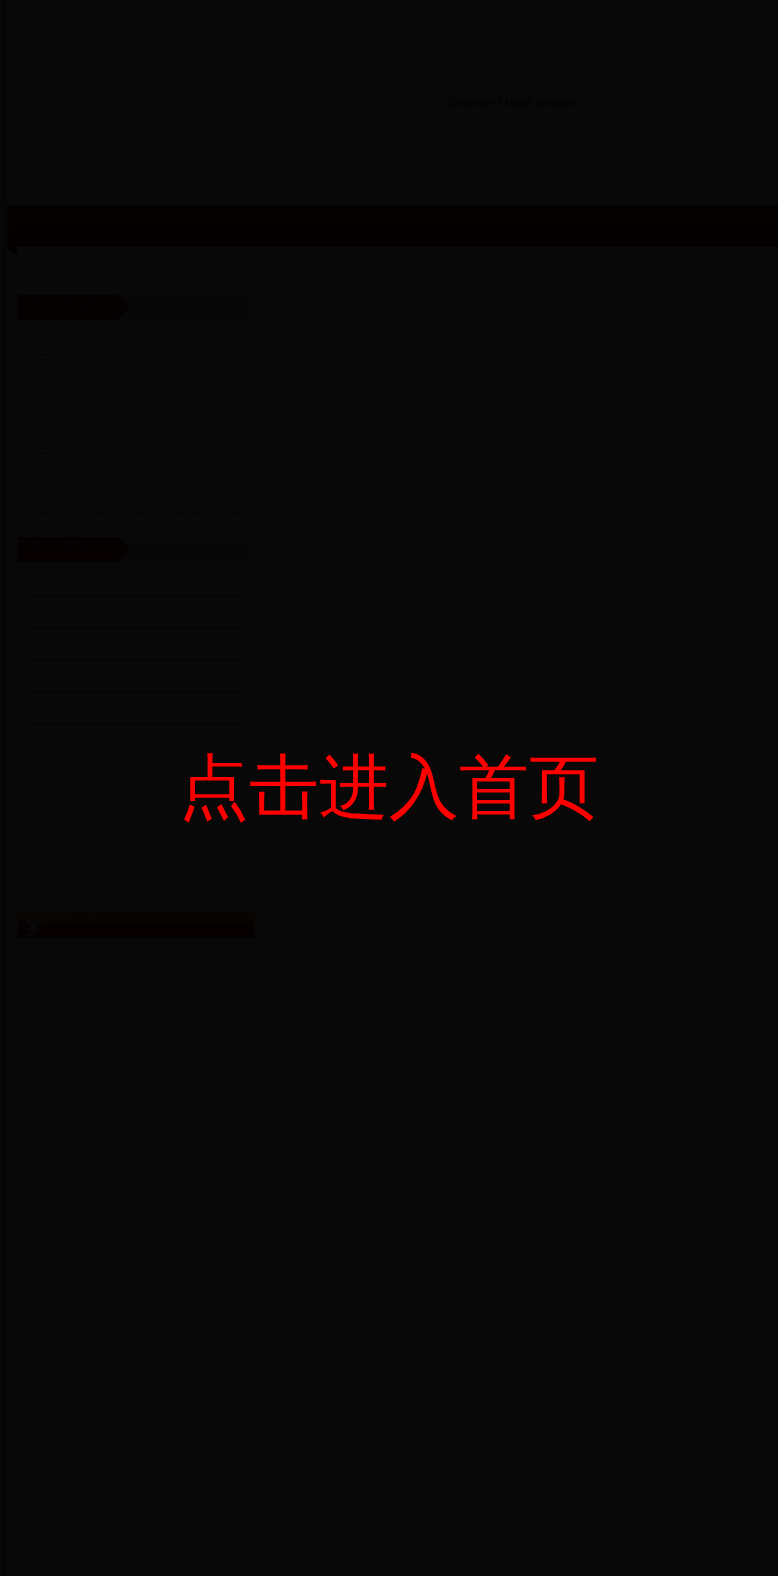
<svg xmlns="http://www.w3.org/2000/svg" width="778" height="1576">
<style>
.a{font:500 70px WenQuanYi Zen Hei;fill:#f00}
</style>
<rect width="100%" height="100%" fill="#070707"/>
<image href="1.png" x="2" y="0" width="776" height="1576"/>
<image href="2.png" x="448" y="98" width="131" height="12"/>
<image href="3.png" x="7" y="205" width="10" height="50"/>
<image href="4.png" x="17" y="205" width="761" height="42"/>
<image href="5.png" x="17" y="295" width="238" height="25"/>
<path fill="none" stroke="#060000" stroke-dasharray="3 2.05" d="M35 512.5h220"/>
<path fill="none" stroke="#060000" stroke-dasharray="3 2.05" d="M35 354.5h220"/>
<path fill="none" stroke="#060000" stroke-dasharray="3 2.05" d="M35 387.5h220"/>
<path fill="none" stroke="#060000" stroke-dasharray="3 2.05" d="M35 420.5h220"/>
<path fill="none" stroke="#060000" stroke-dasharray="3 2.05" d="M35 453.5h220"/>
<path fill="none" stroke="#060000" stroke-dasharray="3 2.05" d="M35 486.5h220"/>
<image href="5.png" x="17" y="537" width="238" height="25"/>
<path fill="#060000" d="M26 595h220v1H26z"/>
<path fill="#060000" d="M26 627h220v1H26z"/>
<path fill="#060000" d="M26 659h220v1H26z"/>
<path fill="#060000" d="M26 691h220v1H26z"/>
<path fill="#060000" d="M26 723h220v1H26z"/>
<image href="6.png" x="17" y="913" width="238" height="25"/>
<text class="a" x="179" y="811">点击进入首页</text>
</svg>
